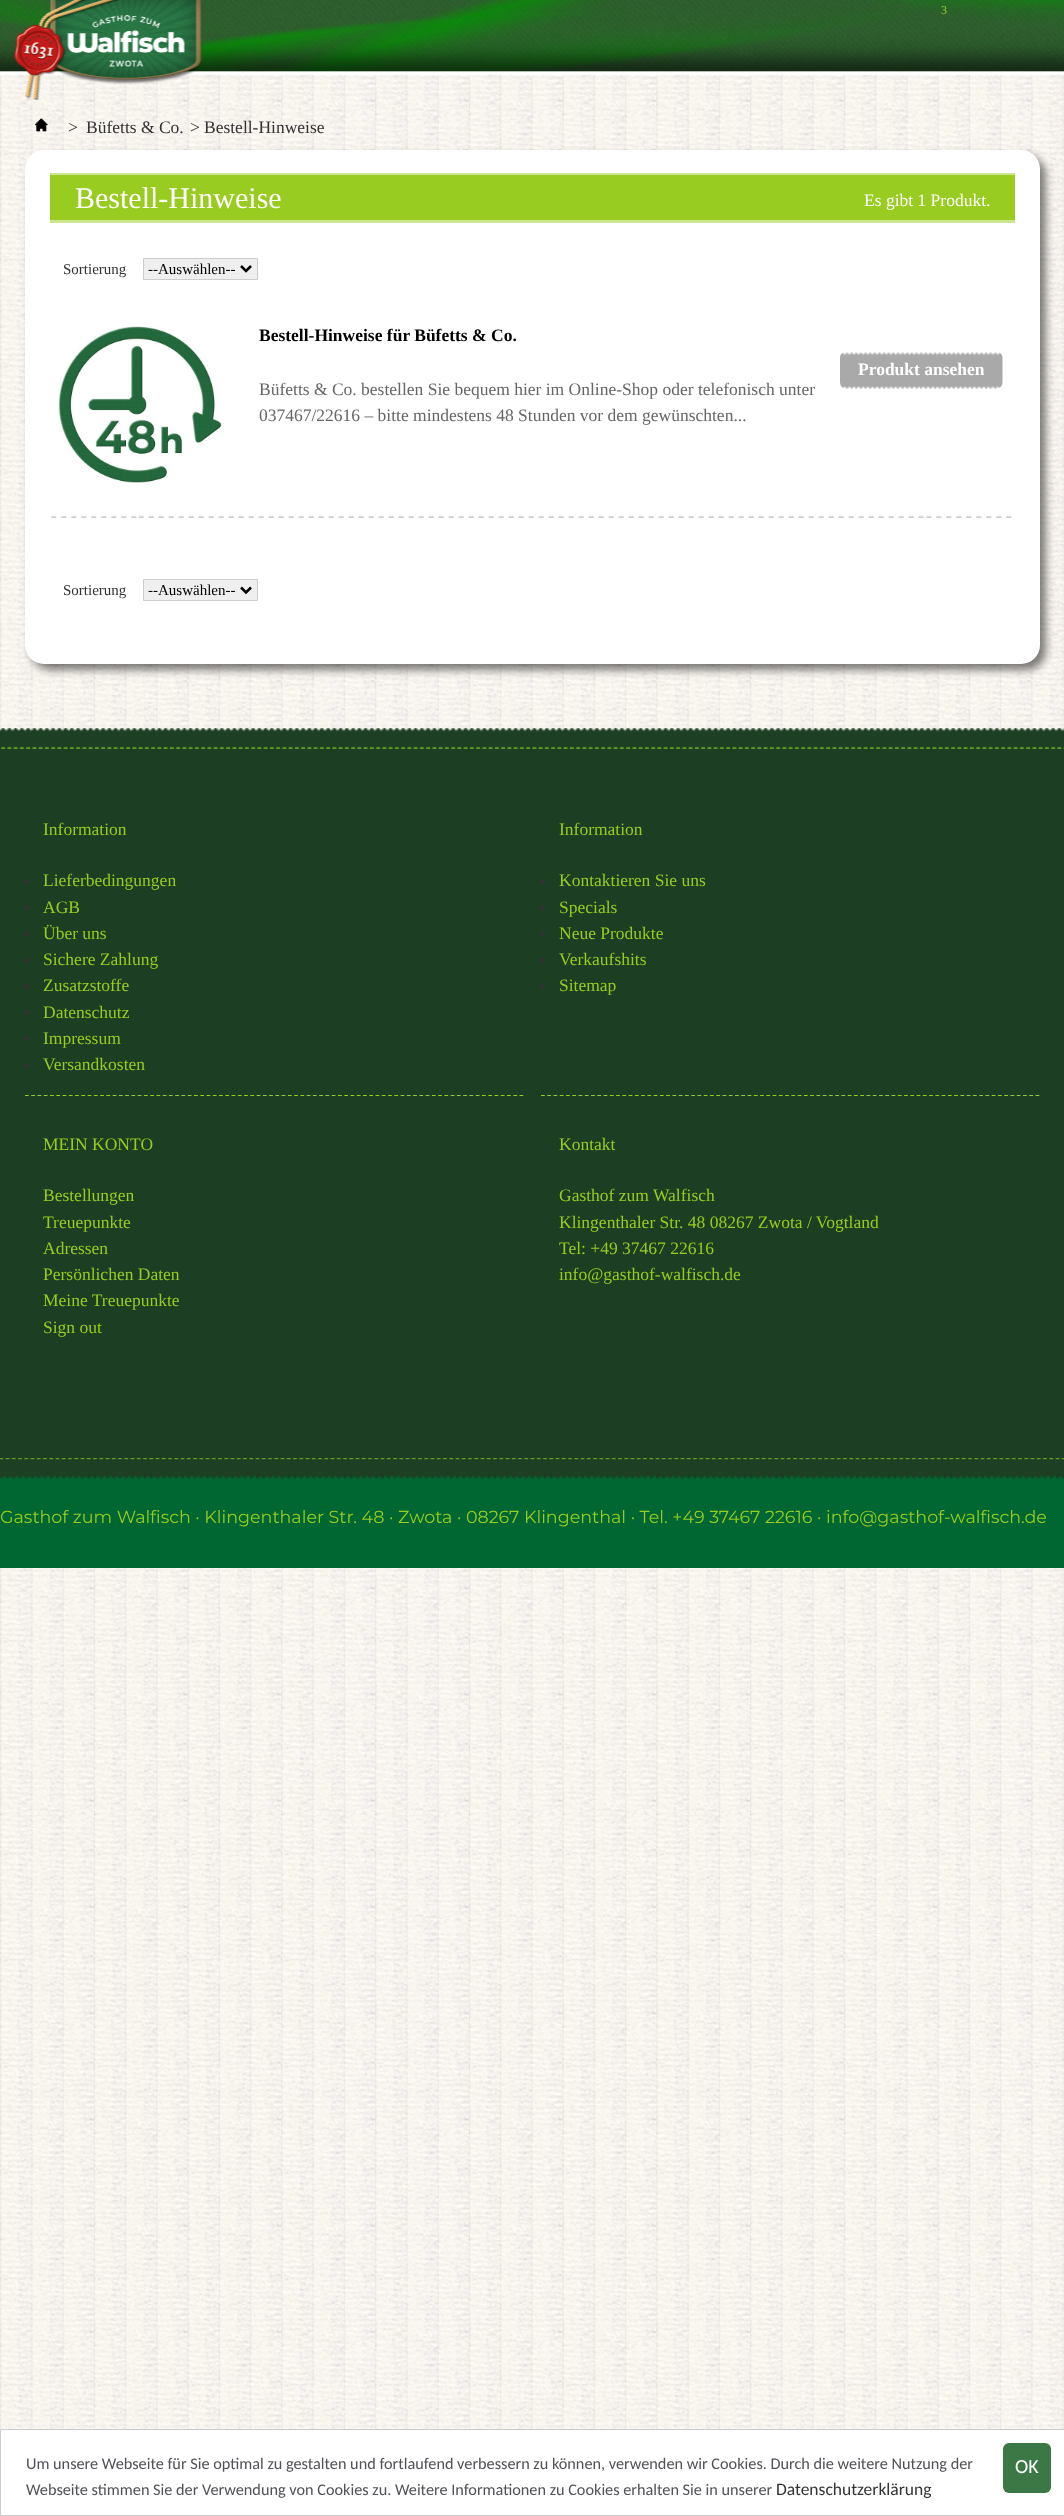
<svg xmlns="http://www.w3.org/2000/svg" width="1064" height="2516">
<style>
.a{font:12px Liberation Serif;fill:#99cc20}
.b{font:17.5px Liberation Serif;fill:#333}
.c{font:30px Liberation Serif;fill:#fff}
.d{font:17.5px Liberation Serif;fill:#fff}
.e{font:15px Liberation Serif;fill:#333}
.f{font:15px Liberation Serif;fill:#000}
.g{font:bold 17.5px Liberation Serif;fill:#000}
.h{font:17.5px Liberation Serif;fill:#666}
.i{font:bold 17.5px Liberation Serif;fill:#fff}
.j{font:17.5px Liberation Serif;fill:#99cc20}
.k{font:17.5px Montserrat;fill:#99cc20}
.l{font:16.25px Carlito;fill:#515157}
.m{font:17.5px Carlito;fill:#333}
.n{font:20px Carlito;fill:#fff}
</style>
<rect width="100%" height="100%" fill="#fff"/>
<image href="1.png" x="0" y="75" width="1064" height="2354"/>
<image href="2.png" x="0" y="0" width="1064" height="75"/>
<image href="3.png" x="14" y="0" width="188" height="100"/>
<image href="4.png" x="34" y="118" width="14" height="14"/>
<rect fill="#00000080" filter="blur(4px)" x="31" y="156" width="1015" height="514" rx="19"/>
<rect fill="#fff" x="25" y="150" width="1015" height="514" rx="19"/>
<path fill="#99cc20" d="M50 175h965v45H50z"/>
<path fill="#99cc2080" d="M50 173h965v2H50z"/>
<path fill="#99cc2080" d="M50 220h965v3H50z"/>
<path fill="#efefef" stroke="#ccc" d="M143.5 258.5h114v21H143.5z"/>
<path fill="none" stroke="#000" stroke-width="2.5" d="M241 266l5 5l5-5"/>
<image href="5.png" x="51" y="515" width="961" height="3"/>
<image href="6.png" x="58" y="326" width="164" height="157"/>
<image href="7.png" x="840" y="352" width="163" height="37"/>
<path fill="#efefef" stroke="#ccc" d="M143.5 579.5h114v21H143.5z"/>
<path fill="none" stroke="#000" stroke-width="2.5" d="M241 587.5l5 5l5-5"/>
<path fill="#006732" d="M0 748h1064v820H0z"/>
<image href="8.png" x="0" y="728" width="1064" height="21"/>
<path fill="#1c3e23" d="M0 749h1064v709H0z"/>
<path fill="none" stroke="#99cc20" stroke-width="1.2" stroke-dasharray="3.75 2.51" d="M25 1095.5h499"/>
<circle fill="#333" cx="26.5" cy="881.5" r="2.5"/>
<circle fill="#333" cx="26.5" cy="907.5" r="2.5"/>
<circle fill="#333" cx="26.5" cy="933.5" r="2.5"/>
<circle fill="#333" cx="26.5" cy="960.5" r="2.5"/>
<circle fill="#333" cx="26.5" cy="986.5" r="2.5"/>
<circle fill="#333" cx="26.5" cy="1012.5" r="2.5"/>
<circle fill="#333" cx="26.5" cy="1038.5" r="2.5"/>
<circle fill="#333" cx="26.5" cy="1065.5" r="2.5"/>
<path fill="none" stroke="#99cc20" stroke-width="1.2" stroke-dasharray="3.75 2.51" d="M541 1095.5h499"/>
<circle fill="#333" cx="542.5" cy="881.5" r="2.5"/>
<circle fill="#333" cx="542.5" cy="907.5" r="2.5"/>
<circle fill="#333" cx="542.5" cy="933.5" r="2.5"/>
<circle fill="#333" cx="542.5" cy="960.5" r="2.5"/>
<circle fill="#333" cx="542.5" cy="986.5" r="2.5"/>
<image href="9.png" x="0" y="1458" width="1064" height="22"/>
<path fill="none" stroke="#ccc" d="M0.5 2429.5h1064v86H0.5z"/>
<rect fill="#3b7845" x="1003" y="2443" width="48" height="50" rx="6"/>
<text class="a" x="941" y="14">3</text>
<text class="b" x="68" y="133">&gt;</text>
<text class="b" x="86" y="133">Büfetts &amp; Co.</text>
<text class="b" x="190" y="133">&gt;</text>
<text class="b" x="204" y="133">Bestell-Hinweise</text>
<text class="c" x="75" y="208">Bestell-Hinweise</text>
<text class="d" x="864" y="206">Es gibt 1 Produkt.</text>
<text class="e" x="63" y="274">Sortierung</text>
<text class="f" x="148" y="274">--Auswählen--</text>
<text class="g" x="259" y="341">Bestell-Hinweise für Büfetts &amp; Co.</text>
<text class="h" x="259" y="395">Büfetts &amp; Co. bestellen Sie bequem hier im Online-Shop oder telefonisch unter</text>
<text class="h" x="259" y="421">037467/22616 – bitte mindestens 48 Stunden vor dem gewünschten...</text>
<text class="i" x="858" y="375">Produkt ansehen</text>
<text class="e" x="63" y="595">Sortierung</text>
<text class="f" x="148" y="595">--Auswählen--</text>
<text class="j" x="43" y="835">Information</text>
<text class="j" x="43" y="886">Lieferbedingungen</text>
<text class="j" x="43" y="913">AGB</text>
<text class="j" x="43" y="939">Über uns</text>
<text class="j" x="43" y="965">Sichere Zahlung</text>
<text class="j" x="43" y="991">Zusatzstoffe</text>
<text class="j" x="43" y="1018">Datenschutz</text>
<text class="j" x="43" y="1044">Impressum</text>
<text class="j" x="43" y="1070">Versandkosten</text>
<text class="j" x="559" y="835">Information</text>
<text class="j" x="559" y="886">Kontaktieren Sie uns</text>
<text class="j" x="559" y="913">Specials</text>
<text class="j" x="559" y="939">Neue Produkte</text>
<text class="j" x="559" y="965">Verkaufshits</text>
<text class="j" x="559" y="991">Sitemap</text>
<text class="j" x="43" y="1150">MEIN KONTO</text>
<text class="j" x="43" y="1201">Bestellungen</text>
<text class="j" x="43" y="1228">Treuepunkte</text>
<text class="j" x="43" y="1254">Adressen</text>
<text class="j" x="43" y="1280">Persönlichen Daten</text>
<text class="j" x="43" y="1306">Meine Treuepunkte</text>
<text class="j" x="43" y="1333">Sign out</text>
<text class="j" x="559" y="1150">Kontakt</text>
<text class="j" x="559" y="1201">Gasthof zum Walfisch</text>
<text class="j" x="559" y="1228">Klingenthaler Str. 48 08267 Zwota / Vogtland</text>
<text class="j" x="559" y="1254">Tel: +49 37467 22616</text>
<text class="j" x="559" y="1280">info@gasthof-walfisch.de</text>
<text class="k" x="0" y="1523">Gasthof zum Walfisch · Klingenthaler Str. 48 · Zwota · 08267 Klingenthal · Tel. +49 37467 22616 · info@gasthof-walfisch.de</text>
<text class="l" x="26" y="2469">Um unsere Webseite für Sie optimal zu gestalten und fortlaufend verbessern zu können, verwenden wir Cookies. Durch die weitere Nutzung der</text>
<text class="l" x="26" y="2495">Webseite stimmen Sie der Verwendung von Cookies zu. Weitere Informationen zu Cookies erhalten Sie in unserer</text>
<text class="m" x="776" y="2495">Datenschutzerklärung</text>
<text class="n" x="1015" y="2473">OK</text>
</svg>
